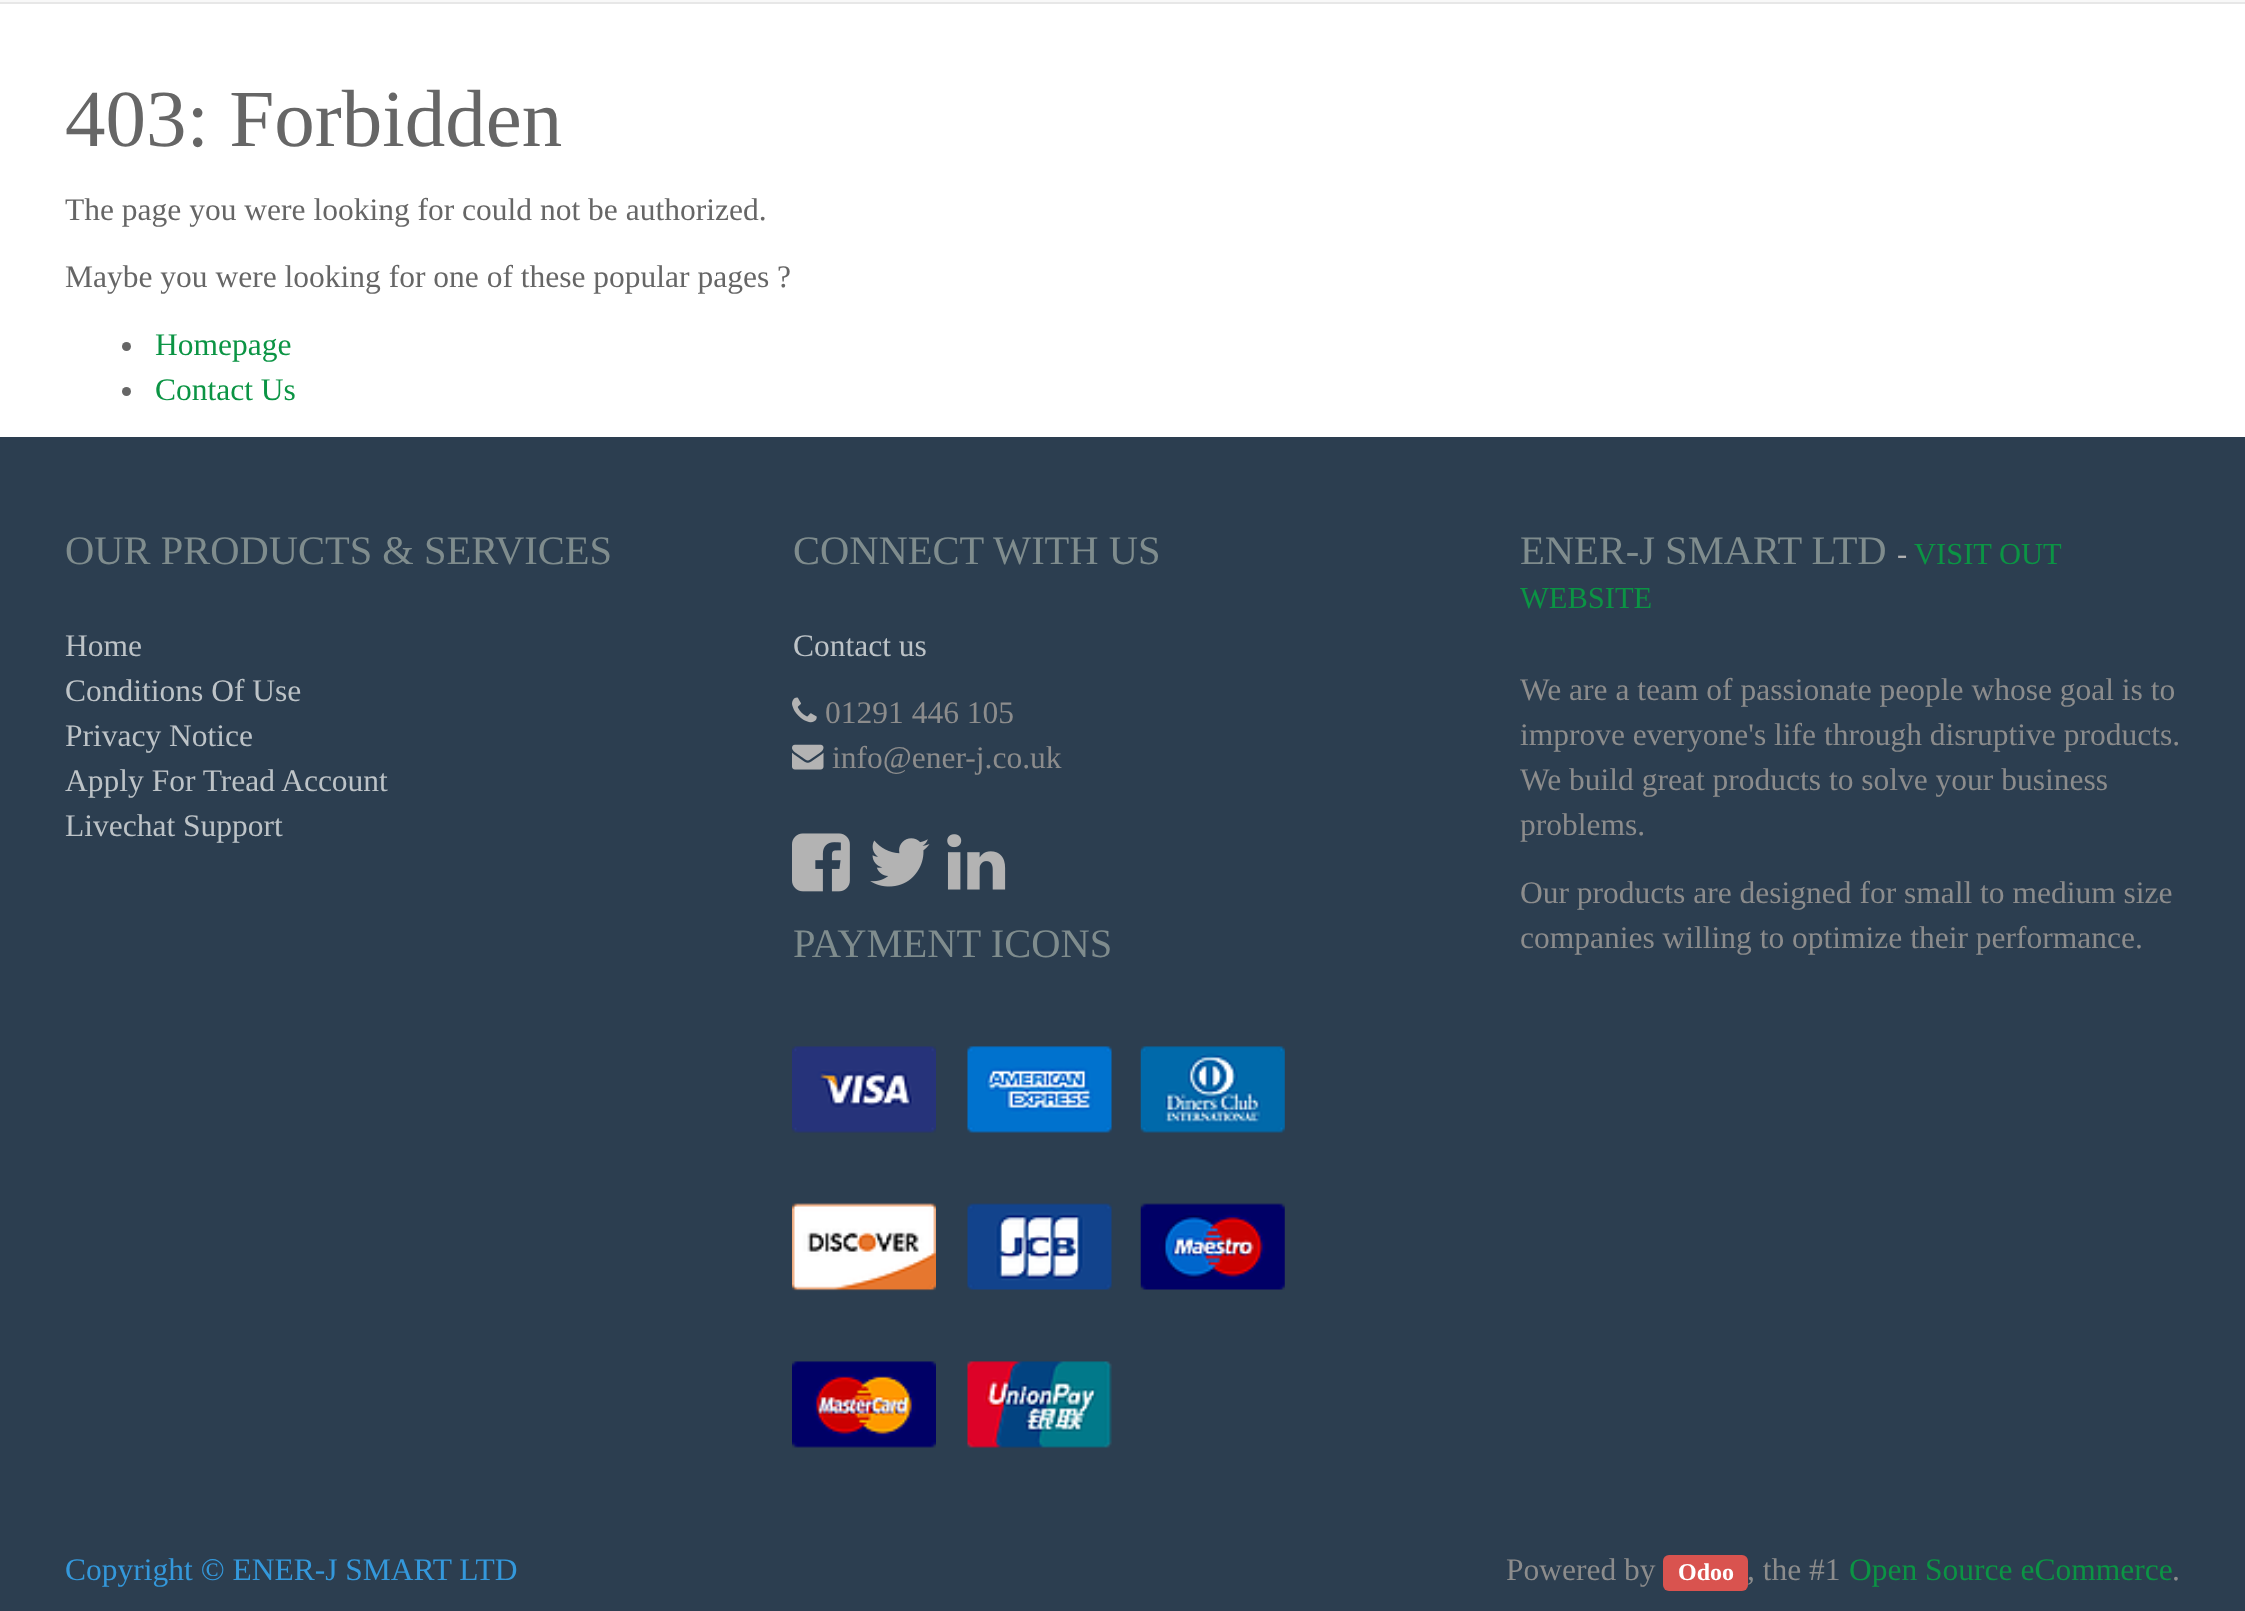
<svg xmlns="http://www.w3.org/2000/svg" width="2245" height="1611">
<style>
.a{font:81px Liberation Serif;fill:#666}
.b{font:31.5px Liberation Serif;fill:#666}
.c{font:31.5px Liberation Serif;fill:#0b9444}
.d{font:40.5px Liberation Serif;fill:#7f8c8d}
.e{font:31.5px Liberation Serif;fill:#bdc3c7}
.f{font:31.5px Liberation Serif;fill:#8c8c8c}
.g{font:30.5px Liberation Serif;fill:#b3b3b3}
.h{font:30.5px Liberation Serif;fill:#0b9444}
.i{font:31.5px Liberation Serif;fill:#3498db}
.j{font:bold 24px Liberation Serif;fill:#fff}
</style>
<rect width="100%" height="100%" fill="#fff"/>
<path fill="#f8f8f8" d="M0 0h2245v2H0z"/>
<path fill="#e7e7e7" d="M0 2h2245v2H0z"/>
<circle fill="#666" cx="126.5" cy="346.5" r="4.5"/>
<circle fill="#666" cx="126.5" cy="391.5" r="4.5"/>
<path fill="#2c3e50" d="M0 437h2245v1174H0z"/>
<image href="1.png" x="792" y="697" width="25" height="26"/>
<image href="2.png" x="792" y="744" width="32" height="26"/>
<image href="3.png" x="792" y="833" width="58" height="59"/>
<image href="4.png" x="870" y="838" width="60" height="49"/>
<image href="5.png" x="947" y="834" width="59" height="56"/>
<image href="6.png" x="792" y="1046" width="144" height="87"/>
<image href="7.png" x="967" y="1046" width="145" height="87"/>
<image href="8.png" x="1140" y="1046" width="145" height="87"/>
<image href="9.png" x="792" y="1203" width="144" height="88"/>
<image href="10.png" x="967" y="1203" width="145" height="87"/>
<image href="11.png" x="1140" y="1203" width="145" height="87"/>
<image href="12.png" x="792" y="1361" width="144" height="87"/>
<image href="13.png" x="967" y="1361" width="145" height="87"/>
<rect fill="#d9534f" x="1663" y="1555" width="85" height="36" rx="6"/>
<text class="a" x="65" y="146">403: Forbidden</text>
<text class="b" x="65" y="220">The page you were looking for could not be authorized.</text>
<text class="b" x="65" y="287">Maybe you were looking for one of these popular pages ?</text>
<text class="c" x="155" y="355">Homepage</text>
<text class="c" x="155" y="400">Contact Us</text>
<text class="d" x="65" y="564">OUR PRODUCTS &amp; SERVICES</text>
<text class="e" x="65" y="656">Home</text>
<text class="e" x="65" y="701">Conditions Of Use</text>
<text class="e" x="65" y="746">Privacy Notice</text>
<text class="e" x="65" y="791">Apply For Tread Account</text>
<text class="e" x="65" y="836">Livechat Support</text>
<text class="d" x="793" y="564">CONNECT WITH US</text>
<text class="e" x="793" y="656">Contact us</text>
<text class="f" x="825" y="723">01291 446 105</text>
<text class="f" x="832" y="768">info@ener-j.co.uk</text>
<text class="d" x="793" y="957">PAYMENT ICONS</text>
<text class="d" x="1520" y="564">ENER-J SMART LTD</text>
<text class="g" x="1897" y="564">-</text>
<text class="h" x="1914" y="564">VISIT OUT</text>
<text class="h" x="1520" y="608">WEBSITE</text>
<text class="f" x="1520" y="700">We are a team of passionate people whose goal is to</text>
<text class="f" x="1520" y="745">improve everyone's life through disruptive products.</text>
<text class="f" x="1520" y="790">We build great products to solve your business</text>
<text class="f" x="1520" y="835">problems.</text>
<text class="f" x="1520" y="903">Our products are designed for small to medium size</text>
<text class="f" x="1520" y="948">companies willing to optimize their performance.</text>
<text class="i" x="65" y="1580">Copyright © ENER-J SMART LTD</text>
<text class="f" x="1506" y="1580">Powered by</text>
<text class="j" x="1678" y="1580">Odoo</text>
<text class="f" x="1747" y="1580">, the #1</text>
<text class="c" x="1849" y="1580">Open Source eCommerce</text>
<text class="f" x="2172" y="1580">.</text>
</svg>
